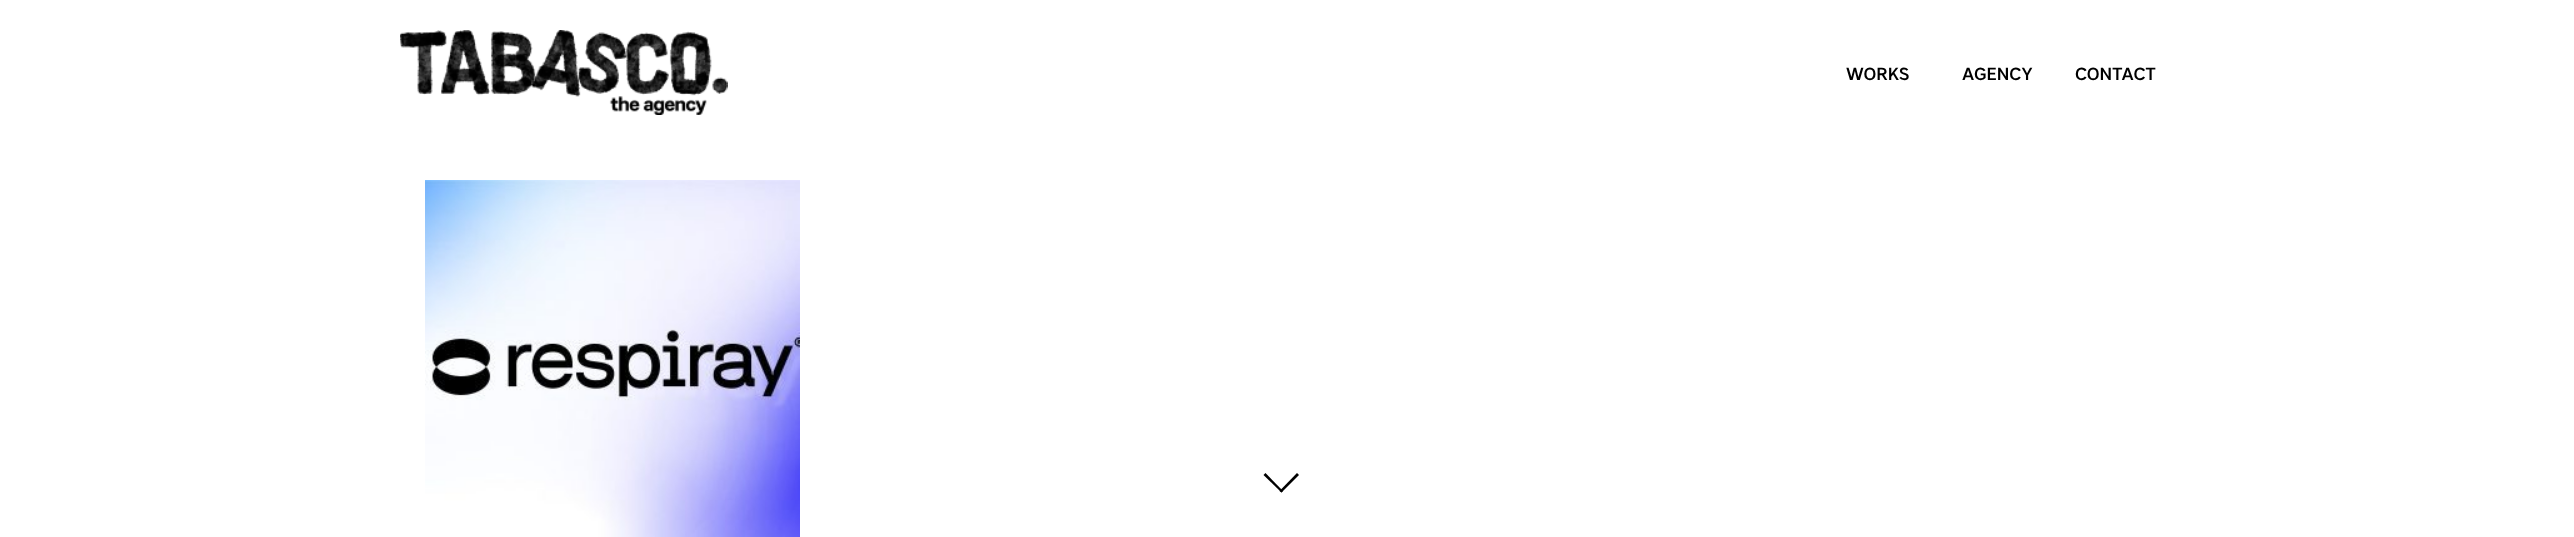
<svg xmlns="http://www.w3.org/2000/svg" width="2574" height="537">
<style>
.a{font:500 17.5px 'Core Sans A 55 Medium';fill:#000}
</style>
<rect width="100%" height="100%" fill="#fff"/>
<image href="1.png" x="400" y="30" width="328" height="85"/>
<image href="2.png" x="425" y="180" width="375" height="357"/>
<path fill="#000" d="M1297 473l2 2l-17.5 17.5l-2-1.5z"/>
<path fill="#000" d="M1265.5 473l17.5 18l-1.5 1.5l-18-17.5z"/>
<text class="a" x="1846" y="80">WORKS</text>
<text class="a" x="1962" y="80">AGENCY</text>
<text class="a" x="2075" y="80">CONTACT</text>
</svg>
